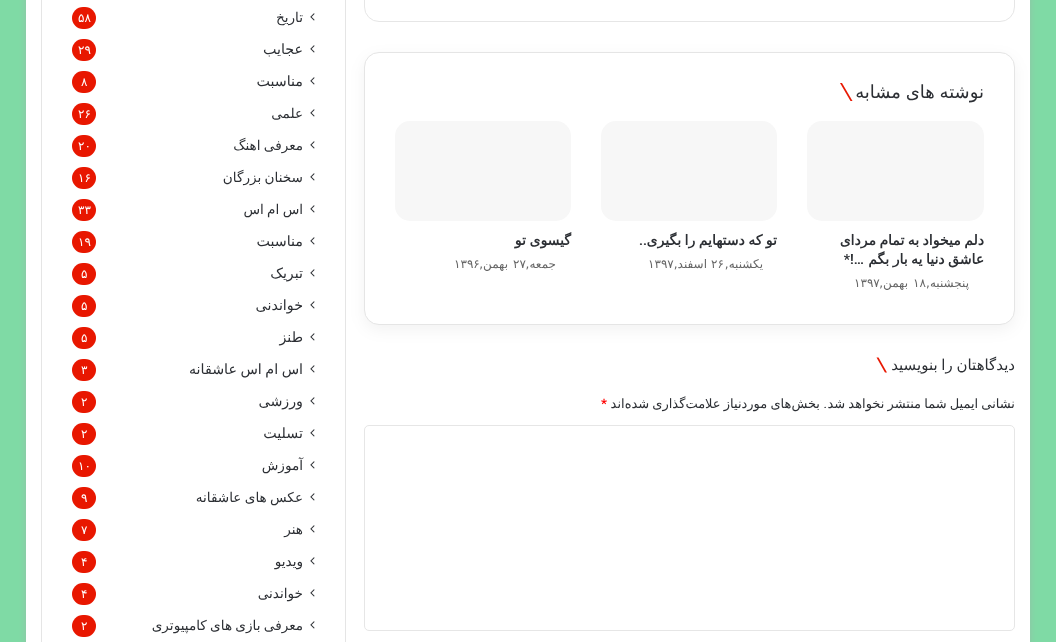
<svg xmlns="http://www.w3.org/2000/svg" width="1056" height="642">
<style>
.a{font:18px DejaVu Sans;direction:rtl;fill:#2c2f34}
.b{font:bold 14px DejaVu Sans;direction:rtl;fill:#2c2f34}
.c{font:600 14px Roboto;direction:rtl;fill:#2c2f34}
.d{font:12px DejaVu Sans;direction:rtl;fill:#666}
.e{font:12px DejaVu Sans;fill:#666}
.f{font:15px DejaVu Sans;direction:rtl;fill:#2c2f34}
.g{font:13px DejaVu Sans;direction:rtl;fill:#2c2f34}
.h{font:13px Roboto;direction:rtl;fill:#2c2f34}
.i{font:bold 13px Roboto;fill:#f00}
.j{font:13.6px DejaVu Sans;direction:rtl;fill:#2c2f34}
.k{font:12px DejaVu Sans;fill:#fff}
.l{font:14.25px DejaVu Sans;direction:rtl;fill:#2c2f34}
</style>
<rect width="100%" height="100%" fill="#7fdaa5"/>
<path fill="#ababab80" filter="blur(3.5px)" d="M26 -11h1004v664H26z"/>
<path fill="#fff" d="M26 0h1004v642H26z"/>
<rect fill="none" stroke="#e6e6e6" x="364.5" y="-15.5" width="650" height="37" rx="14.5"/>
<rect fill="#0000000d" filter="blur(7.5px)" x="364" y="57" width="651" height="273" rx="15"/>
<rect fill="#fff" stroke="#e5e5e5" x="364.5" y="52.5" width="650" height="272" rx="14.5"/>
<path fill="#e81903" d="M840 83h2l10.5 18h-2z"/>
<rect fill="#f7f7f7" x="807" y="121" width="177" height="100" rx="15"/>
<rect fill="#f7f7f7" x="601" y="121" width="176" height="100" rx="15"/>
<rect fill="#f7f7f7" x="395" y="121" width="176" height="100" rx="15"/>
<path fill="#e81903" d="M876.5 357.5h2l8.5 15h-2z"/>
<rect fill="none" stroke="#e6e6e6" x="364.5" y="425.5" width="650" height="205" rx="4.5"/>
<path fill="none" stroke="#e5e5e5" d="M41.5 -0.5h304v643H41.5z"/>
<image href="1.png" x="310" y="13" width="5" height="8"/>
<rect fill="#e81700" x="72" y="7" width="24" height="22" rx="11"/>
<image href="1.png" x="310" y="45" width="5" height="8"/>
<rect fill="#e81700" x="72" y="39" width="24" height="22" rx="11"/>
<image href="1.png" x="310" y="77" width="5" height="8"/>
<rect fill="#e81700" x="72" y="71" width="24" height="22" rx="11"/>
<image href="1.png" x="310" y="109" width="5" height="8"/>
<rect fill="#e81700" x="72" y="103" width="24" height="22" rx="11"/>
<image href="1.png" x="310" y="141" width="5" height="8"/>
<rect fill="#e81700" x="72" y="135" width="24" height="22" rx="11"/>
<image href="1.png" x="310" y="173" width="5" height="8"/>
<rect fill="#e81700" x="72" y="167" width="24" height="22" rx="11"/>
<image href="1.png" x="310" y="205" width="5" height="8"/>
<rect fill="#e81700" x="72" y="199" width="24" height="22" rx="11"/>
<image href="1.png" x="310" y="237" width="5" height="8"/>
<rect fill="#e81700" x="72" y="231" width="24" height="22" rx="11"/>
<image href="1.png" x="310" y="269" width="5" height="8"/>
<rect fill="#e81700" x="72" y="263" width="24" height="22" rx="11"/>
<image href="1.png" x="310" y="301" width="5" height="8"/>
<rect fill="#e81700" x="72" y="295" width="24" height="22" rx="11"/>
<image href="1.png" x="310" y="333" width="5" height="8"/>
<rect fill="#e81700" x="72" y="327" width="24" height="22" rx="11"/>
<image href="1.png" x="310" y="365" width="5" height="8"/>
<rect fill="#e81700" x="72" y="359" width="24" height="22" rx="11"/>
<image href="1.png" x="310" y="397" width="5" height="8"/>
<rect fill="#e81700" x="72" y="391" width="24" height="22" rx="11"/>
<image href="1.png" x="310" y="429" width="5" height="8"/>
<rect fill="#e81700" x="72" y="423" width="24" height="22" rx="11"/>
<image href="1.png" x="310" y="461" width="5" height="8"/>
<rect fill="#e81700" x="72" y="455" width="24" height="22" rx="11"/>
<image href="1.png" x="310" y="493" width="5" height="8"/>
<rect fill="#e81700" x="72" y="487" width="24" height="22" rx="11"/>
<image href="1.png" x="310" y="525" width="5" height="8"/>
<rect fill="#e81700" x="72" y="519" width="24" height="22" rx="11"/>
<image href="1.png" x="310" y="557" width="5" height="8"/>
<rect fill="#e81700" x="72" y="551" width="24" height="22" rx="11"/>
<image href="1.png" x="310" y="589" width="5" height="8"/>
<rect fill="#e81700" x="72" y="583" width="24" height="22" rx="11"/>
<image href="1.png" x="310" y="621" width="5" height="8"/>
<rect fill="#e81700" x="72" y="615" width="24" height="22" rx="11"/>
<text class="a" x="984" y="98" word-spacing="-1">نوشته های مشابه</text>
<text class="b" x="984" y="245" word-spacing="-1">دلم میخواد به تمام مردای</text>
<text class="b" x="984" y="264" word-spacing="-1">عاشق دنیا یه بار بگم</text>
<text class="c" x="864" y="264">…!*</text>
<text class="d" x="969" y="287">پنجشنبه,</text>
<text class="e" x="913" y="287">۱۸</text>
<text class="d" x="908" y="287">بهمن,</text>
<text class="e" x="854" y="287">۱۳۹۷</text>
<text class="b" x="777" y="245" word-spacing="-1">تو که دستهایم را بگیری</text>
<text class="c" x="647" y="245">..</text>
<text class="d" x="763" y="268">یکشنبه,</text>
<text class="e" x="711" y="268">۲۶</text>
<text class="d" x="707" y="268">اسفند,</text>
<text class="e" x="648" y="268">۱۳۹۷</text>
<text class="b" x="571" y="245" word-spacing="-1">گیسوی تو</text>
<text class="d" x="556" y="268">جمعه,</text>
<text class="e" x="513" y="268">۲۷</text>
<text class="d" x="508" y="268">بهمن,</text>
<text class="e" x="454" y="268">۱۳۹۶</text>
<text class="f" x="1015" y="370" word-spacing="-1">دیدگاهتان را بنویسید</text>
<text class="g" x="1015" y="408" word-spacing="-1">نشانی ایمیل شما منتشر نخواهد شد</text>
<text class="h" x="827" y="408">.</text>
<text class="g" x="820" y="408" word-spacing="-1">بخش‌های موردنیاز علامت‌گذاری شده‌اند</text>
<text class="i" x="601" y="408">*</text>
<text class="j" x="303" y="22">تاریخ</text>
<text class="k" x="78" y="22">۵۸</text>
<text class="l" x="303" y="54">عجایب</text>
<text class="k" x="78" y="54">۲۹</text>
<text class="l" x="303" y="86">مناسبت</text>
<text class="k" x="81" y="86">۸</text>
<text class="j" x="303" y="118">علمی</text>
<text class="k" x="78" y="118">۲۶</text>
<text class="j" x="303" y="150" word-spacing="-1">معرفی اهنگ</text>
<text class="k" x="78" y="150">۲۰</text>
<text class="j" x="303" y="182" word-spacing="-1">سخنان بزرگان</text>
<text class="k" x="78" y="182">۱۶</text>
<text class="j" x="303" y="214" word-spacing="-1">اس ام اس</text>
<text class="k" x="78" y="214">۳۳</text>
<text class="l" x="303" y="246">مناسبت</text>
<text class="k" x="78" y="246">۱۹</text>
<text class="l" x="303" y="278">تبریک</text>
<text class="k" x="81" y="278">۵</text>
<text class="l" x="303" y="310">خواندنی</text>
<text class="k" x="81" y="310">۵</text>
<text class="l" x="303" y="342">طنز</text>
<text class="k" x="81" y="342">۵</text>
<text class="l" x="303" y="374" word-spacing="-1">اس ام اس عاشقانه</text>
<text class="k" x="81" y="374">۳</text>
<text class="l" x="303" y="406">ورزشی</text>
<text class="k" x="81" y="406">۲</text>
<text class="l" x="303" y="438">تسلیت</text>
<text class="k" x="81" y="438">۲</text>
<text class="j" x="303" y="470">آموزش</text>
<text class="k" x="78" y="470">۱۰</text>
<text class="j" x="303" y="502" word-spacing="-1">عکس های عاشقانه</text>
<text class="k" x="81" y="502">۹</text>
<text class="j" x="303" y="534">هنر</text>
<text class="k" x="81" y="534">۷</text>
<text class="j" x="303" y="566">ویدیو</text>
<text class="k" x="81" y="566">۴</text>
<text class="j" x="303" y="598">خواندنی</text>
<text class="k" x="81" y="598">۴</text>
<text class="j" x="303" y="630" word-spacing="-1">معرفی بازی های کامپیوتری</text>
<text class="k" x="81" y="630">۲</text>
</svg>
